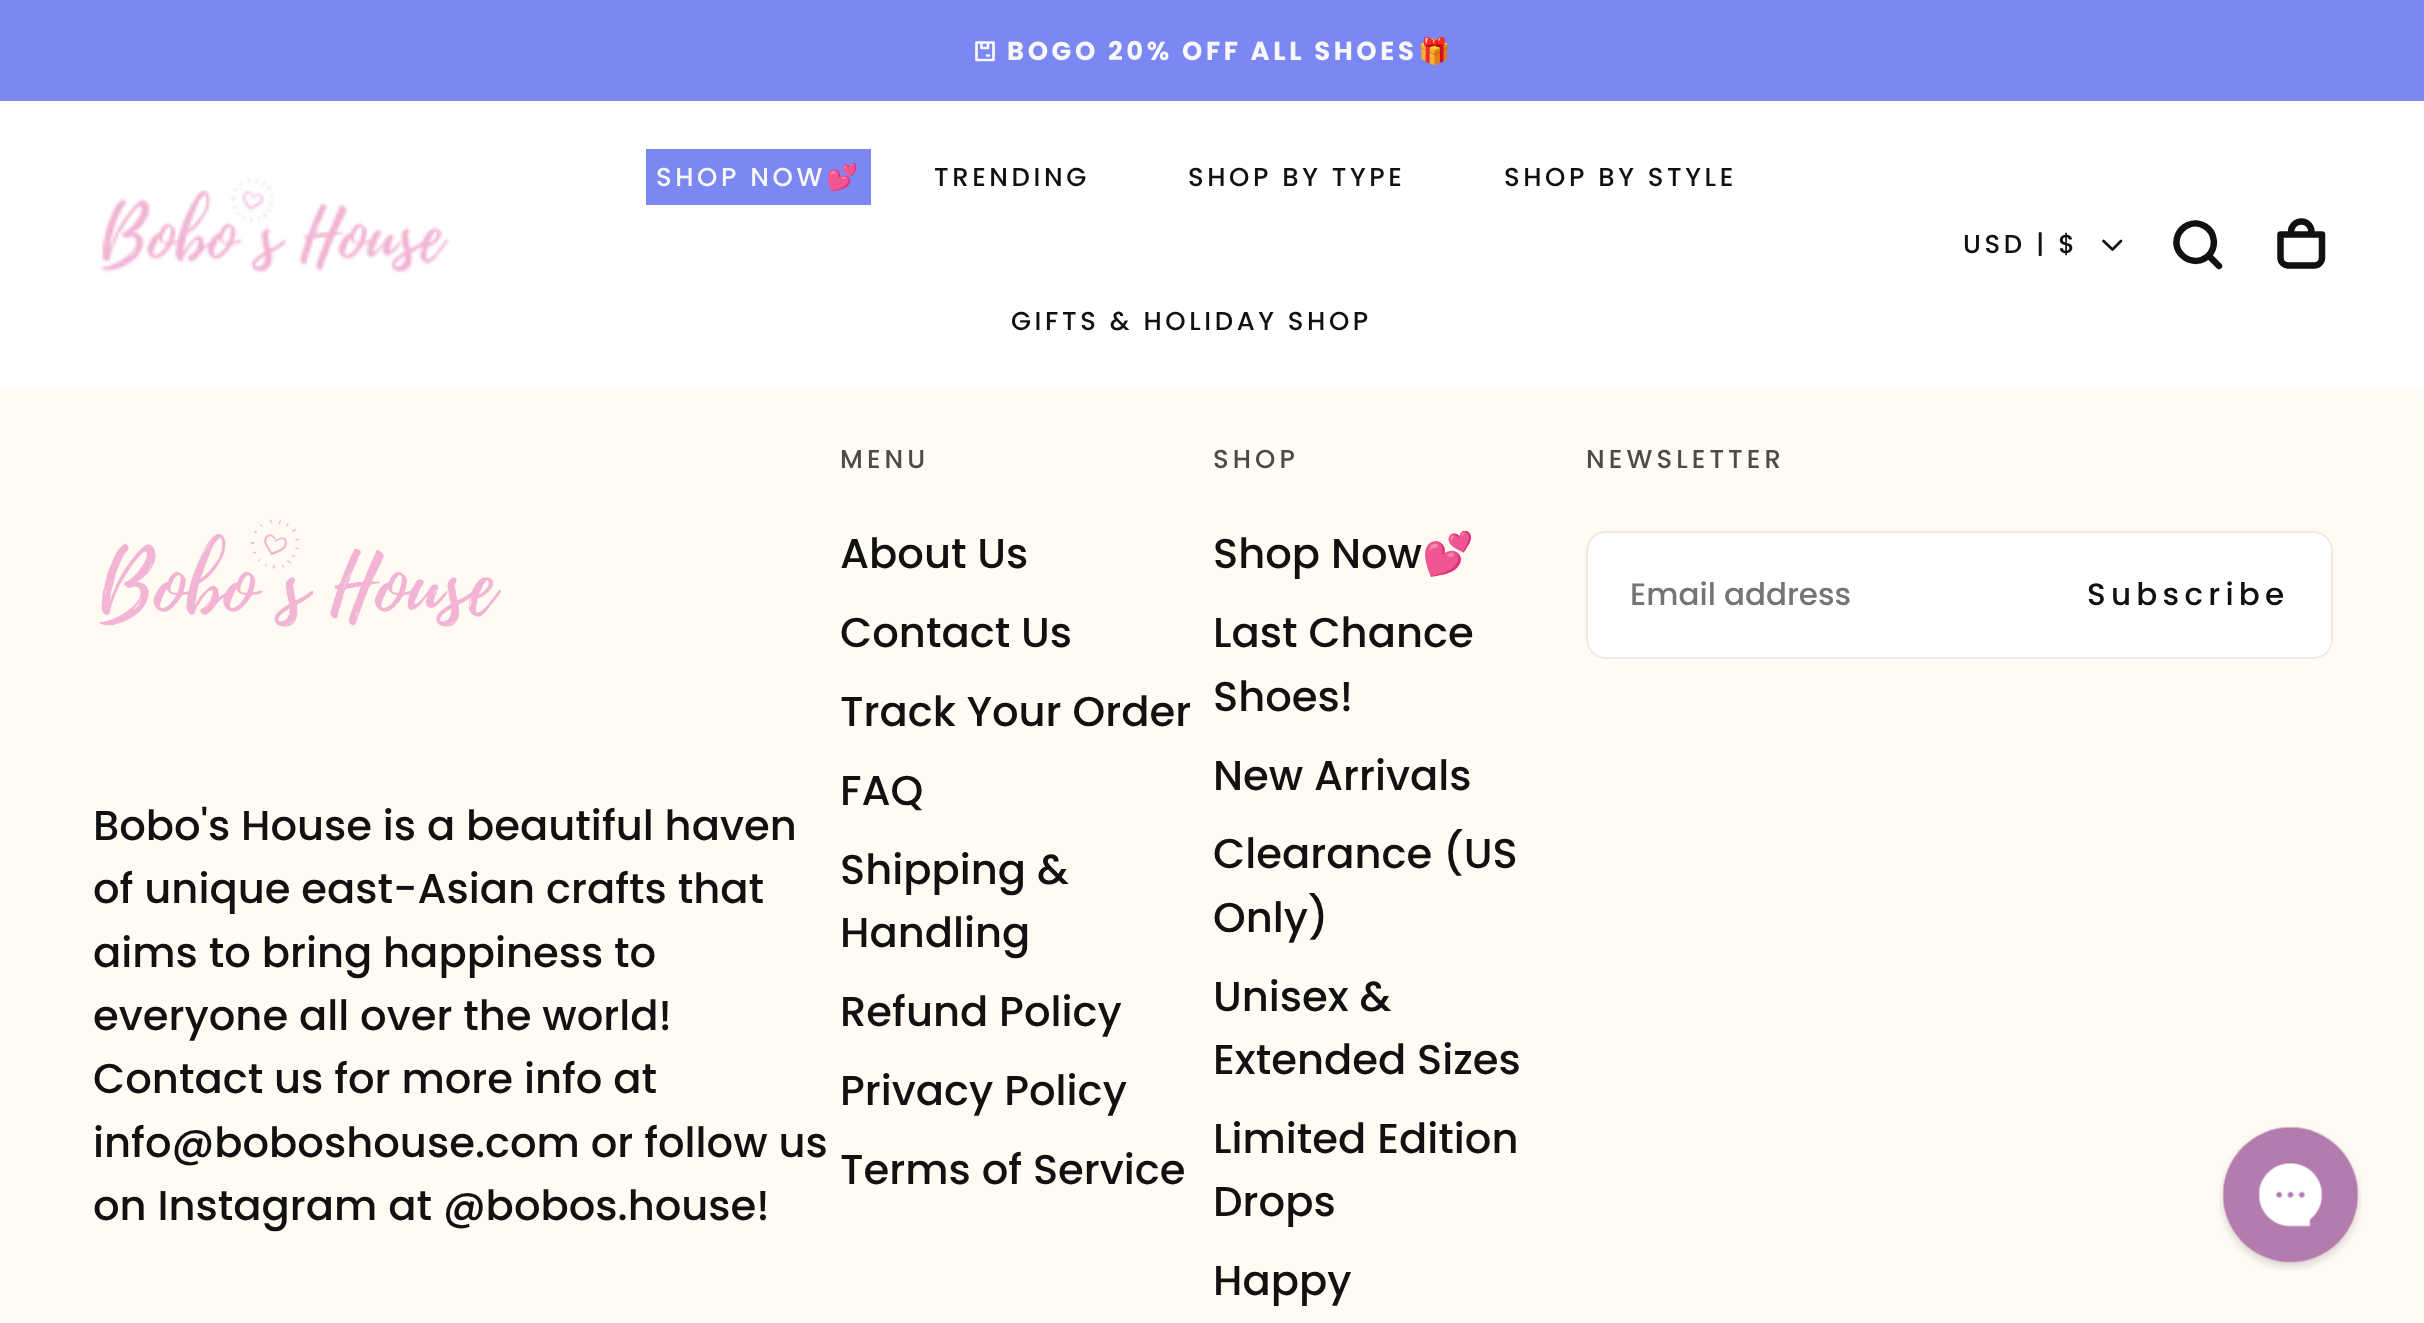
<svg xmlns="http://www.w3.org/2000/svg" width="2424" height="1323">
<style>
.a{font:bold 25.9px Poppins;letter-spacing:3.6px;fill:#f8f8f8}
.b{font:bold 25.9px Noto Color Emoji;letter-spacing:3.6px;fill:#f8f8f8}
.c{font:500 25.9px Poppins;letter-spacing:3.6px;fill:#f8f8f8}
.d{font:25.9px Noto Color Emoji;letter-spacing:3.6px;fill:#f8f8f8}
.e{font:500 25.9px Poppins;letter-spacing:3.6px;fill:#111}
.f{font:500 41.7px Poppins;fill:#111}
.g{font:500 25.9px Poppins;letter-spacing:4.1px;fill:#4d4b49}
.h{font:41.7px Noto Color Emoji;fill:#111}
.i{font:500 31px Poppins;fill:#757575}
.j{font:500 31px Poppins;letter-spacing:5.25px;fill:#111}
</style>
<rect width="100%" height="100%" fill="#fff"/>
<path fill="#7b87f2" d="M0 0h2424v101H0z"/>
<path fill="none" stroke="#f8f8f8" stroke-width="2.7" stroke-linecap="round" stroke-linejoin="round" d="M981.5 42.5v5.5h6.5v-5.5m-1 13h2m-12.5-13v17.5h17v-17.5z"/>
<image href="1.png" x="99" y="177" width="351" height="97"/>
<path fill="#7b87f2" d="M646 149h225v56H646z"/>
<path fill="none" stroke="#111" stroke-width="2.7" stroke-linecap="round" stroke-linejoin="round" d="M2121 241l-8.5 8.5l-9-8.5"/>
<path fill="none" stroke="#111" stroke-width="6.5" stroke-linecap="round" stroke-linejoin="round" d="M2219 266l-10.5-10.5m0 0c8-8 7-22.5-3-29c-5-3.5-12-4-17.5-1.5c-4.5 2-8 5.5-10 10c-8 19 16.5 34.5 30.5 20.5z"/>
<path fill="none" stroke="#111" stroke-width="6.5" stroke-linejoin="round" d="M2280.5 234.5h41.5v23c0 4.5-3.5 8-8 8h-25.5c-4.5 0-8-3.5-8-8zm10.5 0v-2.5c0-6 4.5-10.5 10.5-10.5c5.5 0 10 4.5 10 10.5v2.5"/>
<path fill="#fffaf2" d="M0 389h2424v934H0z"/>
<image href="2.png" x="99" y="519" width="402" height="108"/>
<rect fill="none" stroke="#ebebeb" stroke-width="2" x="1587" y="532" width="745" height="126" rx="19"/>
<path fill="#fff" d="M1607 533h438v124h-438c-10 0-18-8-18-18v-88c0-10 8-18 18-18z"/>
<path fill="#fff" d="M2045 533h268c10 0 18 8 18 18v88c0 10-8 18-18 18h-268z"/>
<image href="3.png" x="2219" y="1126" width="143" height="145"/>
<text class="a" x="1007" y="60">BOGO 20% OFF ALL SHOES</text>
<text class="b" x="1418" y="60">🎁</text>
<text class="c" x="656" y="186">SHOP NOW</text>
<text class="d" x="826" y="186">💕</text>
<text class="e" x="934" y="186">TRENDING</text>
<text class="e" x="1188" y="186">SHOP BY TYPE</text>
<text class="e" x="1504" y="186">SHOP BY STYLE</text>
<text class="e" x="1011" y="330">GIFTS &amp; HOLIDAY SHOP</text>
<text class="e" x="1963" y="253">USD | $</text>
<text class="f" x="93" y="840">Bobo's House is a beautiful haven</text>
<text class="f" x="93" y="903">of unique east-Asian crafts that</text>
<text class="f" x="93" y="967">aims to bring happiness to</text>
<text class="f" x="93" y="1030">everyone all over the world!</text>
<text class="f" x="93" y="1093">Contact us for more info at</text>
<text class="f" x="93" y="1157">info@boboshouse.com or follow us</text>
<text class="f" x="93" y="1220">on Instagram at @bobos.house!</text>
<text class="g" x="840" y="468">MENU</text>
<text class="f" x="840" y="568">About Us</text>
<text class="f" x="840" y="647">Contact Us</text>
<text class="f" x="840" y="726">Track Your Order</text>
<text class="f" x="840" y="805">FAQ</text>
<text class="f" x="840" y="884">Shipping &amp;</text>
<text class="f" x="840" y="947">Handling</text>
<text class="f" x="840" y="1026">Refund Policy</text>
<text class="f" x="840" y="1105">Privacy Policy</text>
<text class="f" x="840" y="1184">Terms of Service</text>
<text class="g" x="1213" y="468">SHOP</text>
<text class="f" x="1213" y="568">Shop Now</text>
<text class="h" x="1422" y="568">💕</text>
<text class="f" x="1213" y="647">Last Chance</text>
<text class="f" x="1213" y="711">Shoes!</text>
<text class="f" x="1213" y="790">New Arrivals</text>
<text class="f" x="1213" y="868">Clearance (US</text>
<text class="f" x="1213" y="932">Only)</text>
<text class="f" x="1213" y="1011">Unisex &amp;</text>
<text class="f" x="1213" y="1074">Extended Sizes</text>
<text class="f" x="1213" y="1153">Limited Edition</text>
<text class="f" x="1213" y="1216">Drops</text>
<text class="f" x="1213" y="1295">Happy</text>
<text class="g" x="1586" y="468">NEWSLETTER</text>
<text class="i" x="1630" y="605">Email address</text>
<text class="j" x="2087" y="605">Subscribe</text>
</svg>
